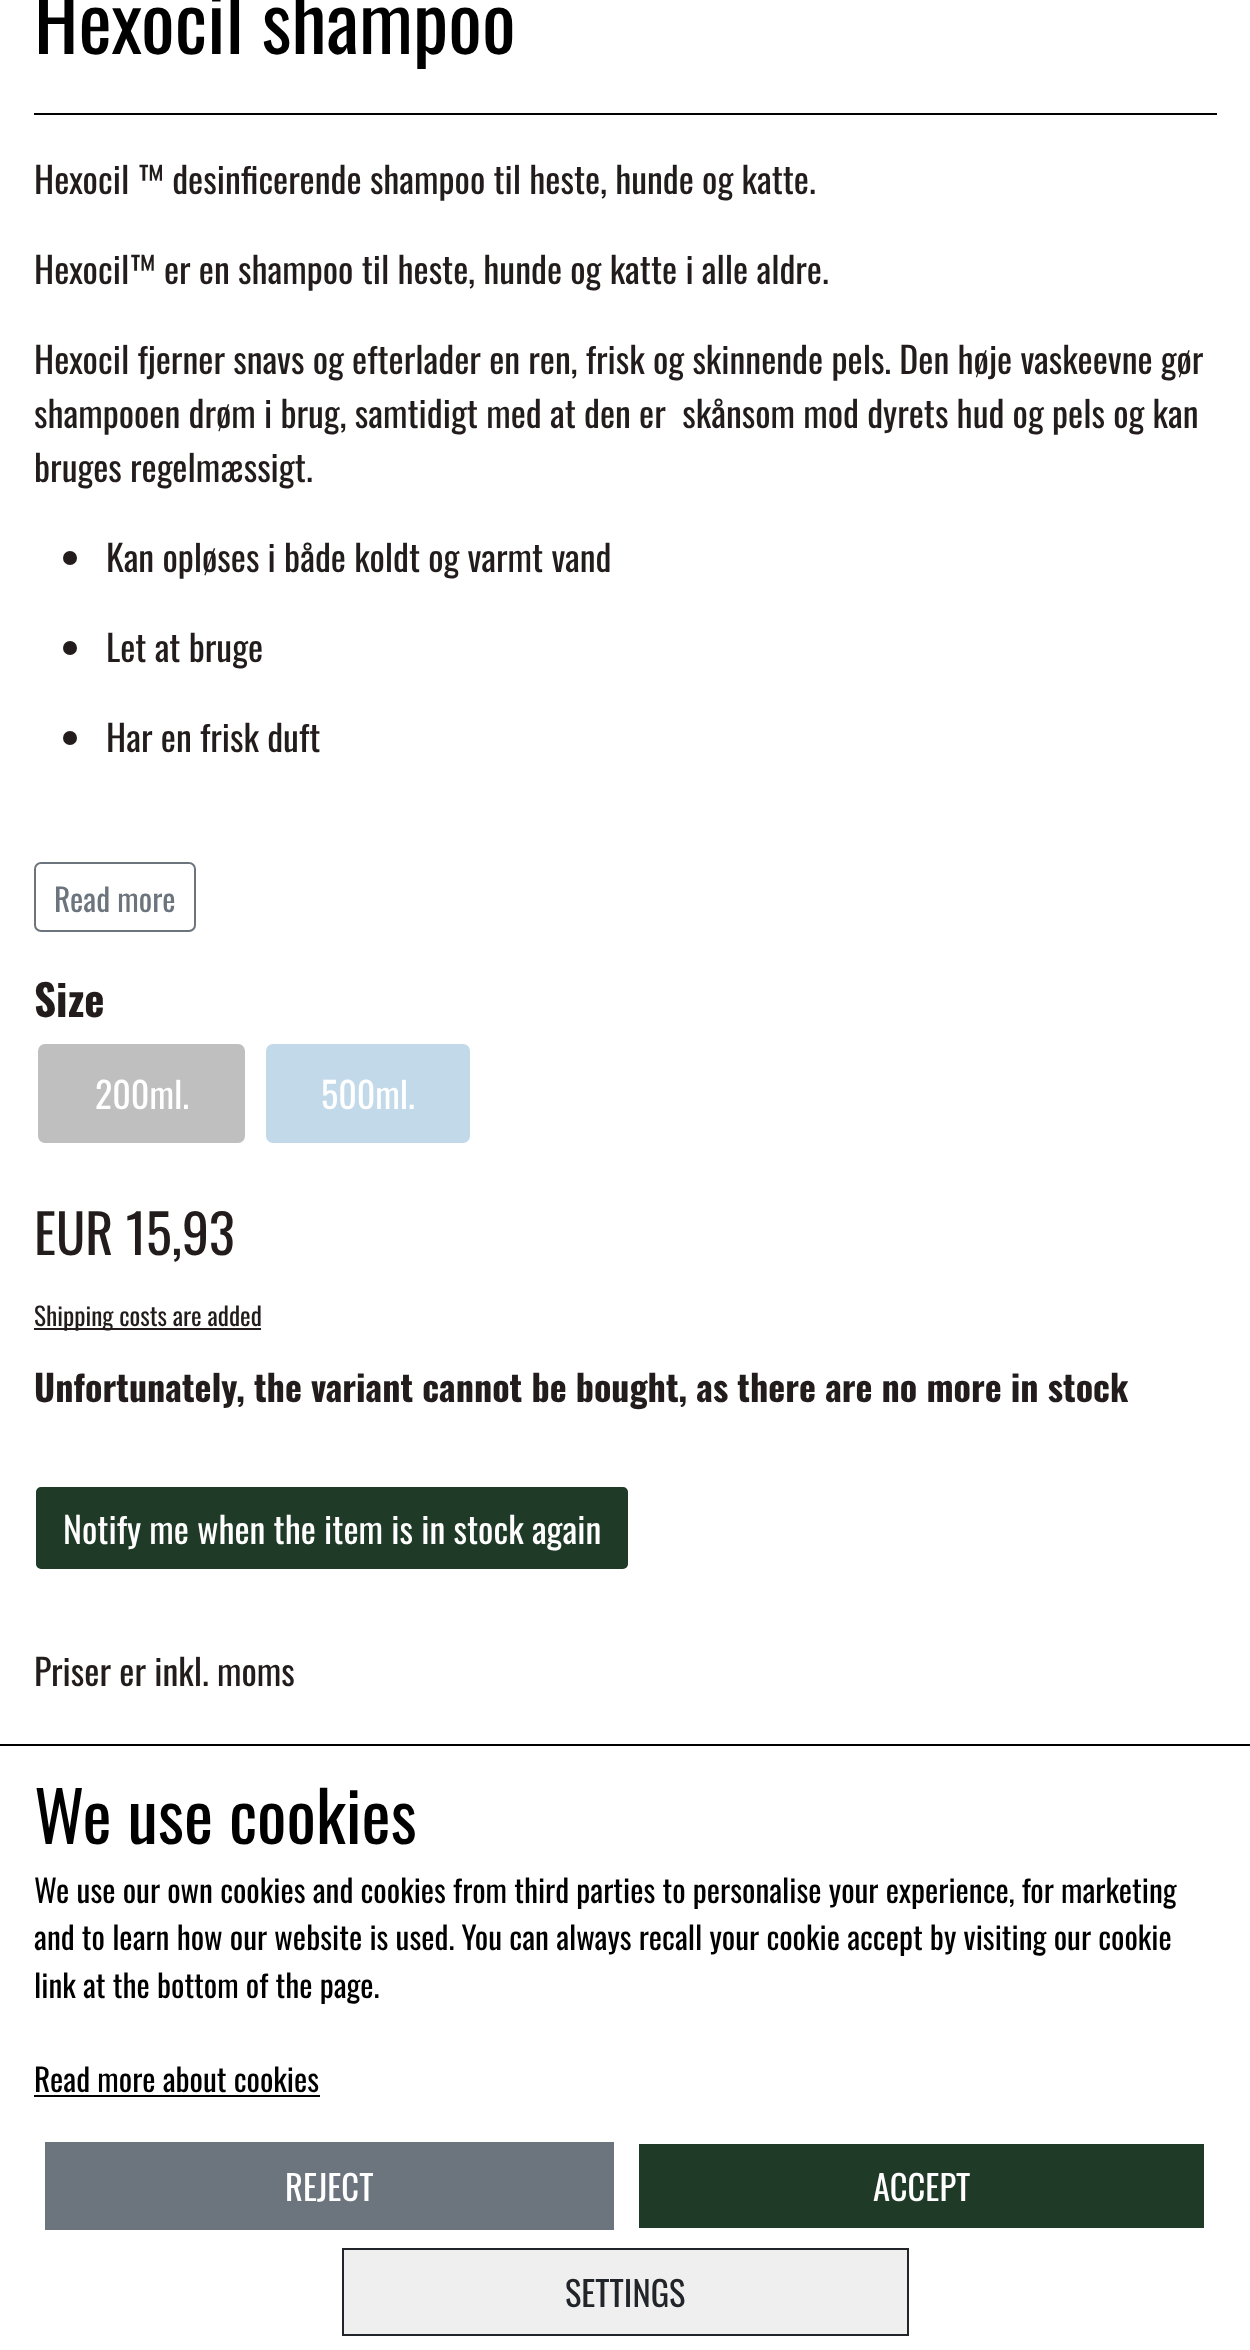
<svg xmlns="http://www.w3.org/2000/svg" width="1250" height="2350">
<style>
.a{font:79.25px Oswald;fill:#000}
.b{font:36px Oswald;fill:#231c1c}
.c{font:31.5px Oswald;fill:#6c757d}
.d{font:bold 43px Oswald;fill:#231c1c}
.e{font:36px Oswald;fill:#fff}
.f{font:54px Oswald;fill:#231c1c}
.g{font:25.25px Oswald;fill:#231c1c}
.h{font:bold 36px Oswald;fill:#231c1c}
.i{font:69.25px Oswald;fill:#000}
.j{font:31.5px Oswald;fill:#000}
.k{font:34.5px Oswald;fill:#fff}
.l{font:34.5px Oswald;fill:#212529}
</style>
<rect width="100%" height="100%" fill="#fff"/>
<path fill="#000" d="M34 113h1183v2H34z"/>
<circle fill="#231c1c" cx="70" cy="558" r="7"/>
<circle fill="#231c1c" cx="70" cy="648" r="7"/>
<circle fill="#231c1c" cx="70" cy="738" r="7"/>
<rect fill="none" stroke="#6c757d" stroke-width="2" x="35" y="863" width="160" height="68" rx="6"/>
<rect fill="#bfbfbf" x="38" y="1044" width="207" height="99" rx="7"/>
<rect fill="#c1d9e9" x="266" y="1044" width="204" height="99" rx="7"/>
<path fill="#231c1c" d="M34 1328h227v2H34z"/>
<rect fill="#1f3a26" stroke="#fff" stroke-width="2" x="35" y="1486" width="594" height="84" rx="6"/>
<path fill="#000" d="M0 1744h1250v2H0z"/>
<path fill="#000" d="M34 2095h286v2H34z"/>
<path fill="#6c757d" d="M45 2142h569v88H45z"/>
<path fill="#1f3a26" d="M639 2144h565v84H639z"/>
<path fill="#efefef" stroke="#212529" stroke-width="2" d="M343 2249h565v86H343z"/>
<text class="a" x="34" y="54">Hexocil shampoo</text>
<text class="b" x="34" y="194">Hexocil ™ desinficerende shampoo til heste, hunde og katte.</text>
<text class="b" x="34" y="284">Hexocil™ er en shampoo til heste, hunde og katte i alle aldre.</text>
<text class="b" x="34" y="374">Hexocil fjerner snavs og efterlader en ren, frisk og skinnende pels. Den høje vaskeevne gør</text>
<text class="b" xml:space="preserve" x="34" y="428">shampooen drøm i brug, samtidigt med at den er  skånsom mod dyrets hud og pels og kan</text>
<text class="b" x="34" y="482">bruges regelmæssigt.</text>
<text class="b" x="106" y="572">Kan opløses i både koldt og varmt vand</text>
<text class="b" x="106" y="662">Let at bruge</text>
<text class="b" x="106" y="752">Har en frisk duft</text>
<text class="c" x="54" y="912">Read more</text>
<text class="d" x="34" y="1017">Size</text>
<text class="e" x="95" y="1109">200ml.</text>
<text class="e" x="321" y="1109">500ml.</text>
<text class="f" x="34" y="1255">EUR 15,93</text>
<text class="g" x="34" y="1326">Shipping costs are added</text>
<text class="h" x="34" y="1402">Unfortunately, the variant cannot be bought, as there are no more in stock</text>
<text class="e" x="63" y="1544">Notify me when the item is in stock again</text>
<text class="b" x="34" y="1686">Priser er inkl. moms</text>
<text class="i" x="34" y="1844">We use cookies</text>
<text class="j" x="34" y="1903">We use our own cookies and cookies from third parties to personalise your experience, for marketing</text>
<text class="j" x="34" y="1950">and to learn how our website is used. You can always recall your cookie accept by visiting our cookie</text>
<text class="j" x="34" y="1998">link at the bottom of the page.</text>
<text class="j" x="34" y="2092">Read more about cookies</text>
<text class="k" x="285" y="2201">REJECT</text>
<text class="k" x="873" y="2201">ACCEPT</text>
<text class="l" x="565" y="2307">SETTINGS</text>
</svg>
